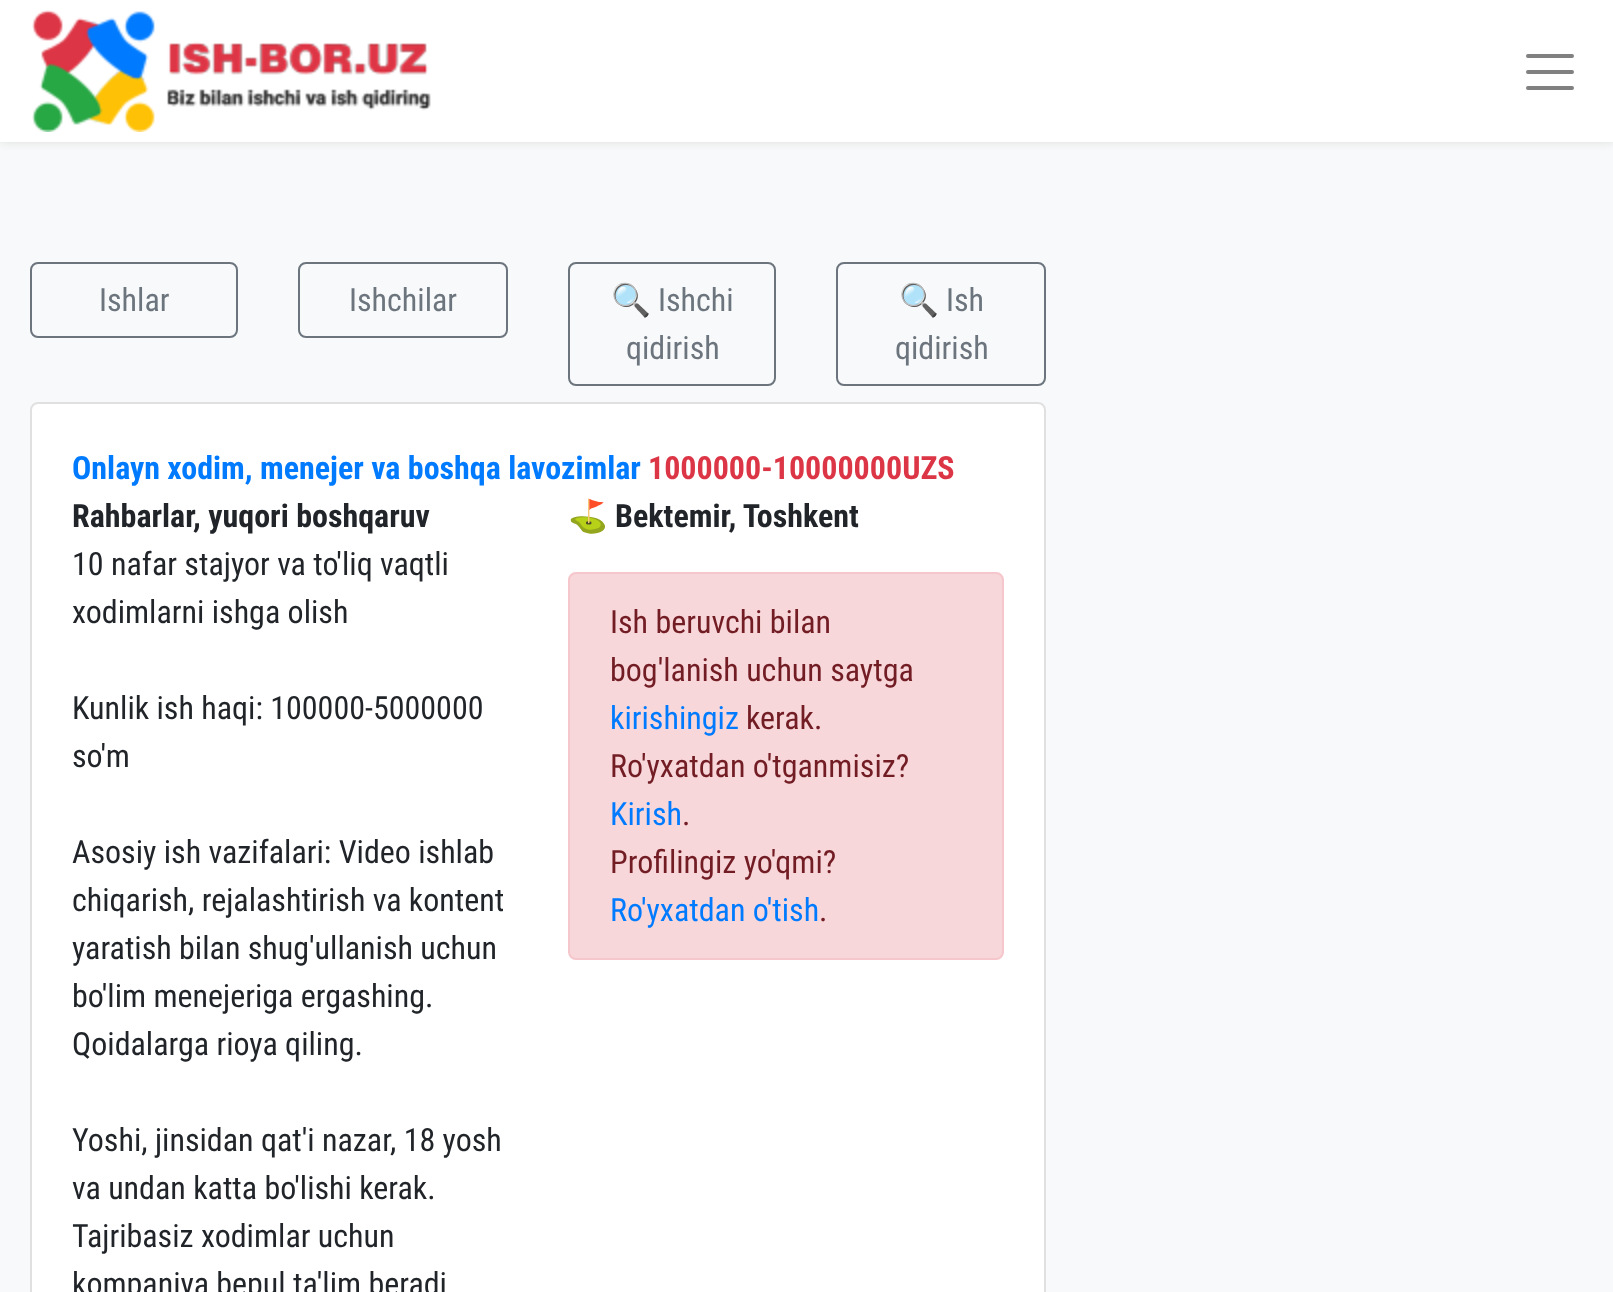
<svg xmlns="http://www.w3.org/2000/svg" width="1613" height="1292">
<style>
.a{font:32px Roboto Condensed;fill:#6c757d}
.b{font:32px Noto Color Emoji;fill:#6c757d}
.c{font:bold 32px Roboto Condensed;fill:#007bff}
.d{font:bold 32px Roboto Condensed;fill:#dc3545}
.e{font:bold 32px Roboto Condensed;fill:#212529}
.f{font:32px Roboto Condensed;fill:#212529}
.g{font:bold 32px Noto Color Emoji;fill:#212529}
.h{font:32px Roboto Condensed;fill:#721c24}
.i{font:32px Roboto Condensed;fill:#007bff}
</style>
<rect width="100%" height="100%" fill="#f8f9fa"/>
<path fill="#ddd" filter="blur(5px)" d="M0 0h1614v142H0z"/>
<path fill="#fff" d="M0 0h1613v142H0z"/>
<image href="1.png" x="32" y="10" width="399" height="122"/>
<path fill="none" stroke="#808080" stroke-width="4" stroke-linecap="round" d="M1528 56h44m-44 16h44m-44 16h44"/>
<rect fill="none" stroke="#6c757d" stroke-width="2" x="31" y="263" width="206" height="74" rx="7"/>
<rect fill="none" stroke="#6c757d" stroke-width="2" x="299" y="263" width="208" height="74" rx="7"/>
<rect fill="none" stroke="#6c757d" stroke-width="2" x="569" y="263" width="206" height="122" rx="7"/>
<rect fill="none" stroke="#6c757d" stroke-width="2" x="837" y="263" width="208" height="122" rx="7"/>
<rect fill="#fff" x="30" y="402" width="1016" height="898" rx="8"/>
<rect fill="none" stroke="#0000001f" stroke-width="2" x="31" y="403" width="1014" height="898" rx="7"/>
<rect fill="#f8d7da" stroke="#f5c6cb" stroke-width="2" x="569" y="573" width="434" height="386" rx="7"/>
<text class="a" x="99" y="311">Ishlar</text>
<text class="a" x="349" y="311">Ishchilar</text>
<text class="b" x="611" y="311">🔍</text>
<text class="a" x="658" y="311">Ishchi</text>
<text class="a" x="626" y="359">qidirish</text>
<text class="b" x="899" y="311">🔍</text>
<text class="a" x="946" y="311">Ish</text>
<text class="a" x="895" y="359">qidirish</text>
<text class="c" x="72" y="479">Onlayn xodim, menejer va boshqa lavozimlar</text>
<text class="d" x="648" y="479">1000000-10000000UZS</text>
<text class="e" x="72" y="527">Rahbarlar, yuqori boshqaruv</text>
<text class="f" x="72" y="575">10 nafar stajyor va to'liq vaqtli</text>
<text class="f" x="72" y="623">xodimlarni ishga olish</text>
<text class="f" x="72" y="719">Kunlik ish haqi: 100000-5000000</text>
<text class="f" x="72" y="767">so'm</text>
<text class="f" x="72" y="863">Asosiy ish vazifalari: Video ishlab</text>
<text class="f" x="72" y="911">chiqarish, rejalashtirish va kontent</text>
<text class="f" x="72" y="959">yaratish bilan shug'ullanish uchun</text>
<text class="f" x="72" y="1007">bo'lim menejeriga ergashing.</text>
<text class="f" x="72" y="1055">Qoidalarga rioya qiling.</text>
<text class="f" x="72" y="1151">Yoshi, jinsidan qat'i nazar, 18 yosh</text>
<text class="f" x="72" y="1199">va undan katta bo'lishi kerak.</text>
<text class="f" x="72" y="1247">Tajribasiz xodimlar uchun</text>
<text class="f" x="72" y="1295">kompaniya bepul ta'lim beradi</text>
<text class="g" x="568" y="527">⛳</text>
<text class="e" x="615" y="527">Bektemir, Toshkent</text>
<text class="h" x="610" y="633">Ish beruvchi bilan</text>
<text class="h" x="610" y="681">bog'lanish uchun saytga</text>
<text class="i" x="610" y="729">kirishingiz</text>
<text class="h" x="746" y="729">kerak.</text>
<text class="h" x="610" y="777">Ro'yxatdan o'tganmisiz?</text>
<text class="i" x="610" y="825">Kirish</text>
<text class="h" x="682" y="825">.</text>
<text class="h" x="610" y="873">Profilingiz yo'qmi?</text>
<text class="i" x="610" y="921">Ro'yxatdan o'tish</text>
<text class="h" x="819" y="921">.</text>
</svg>
